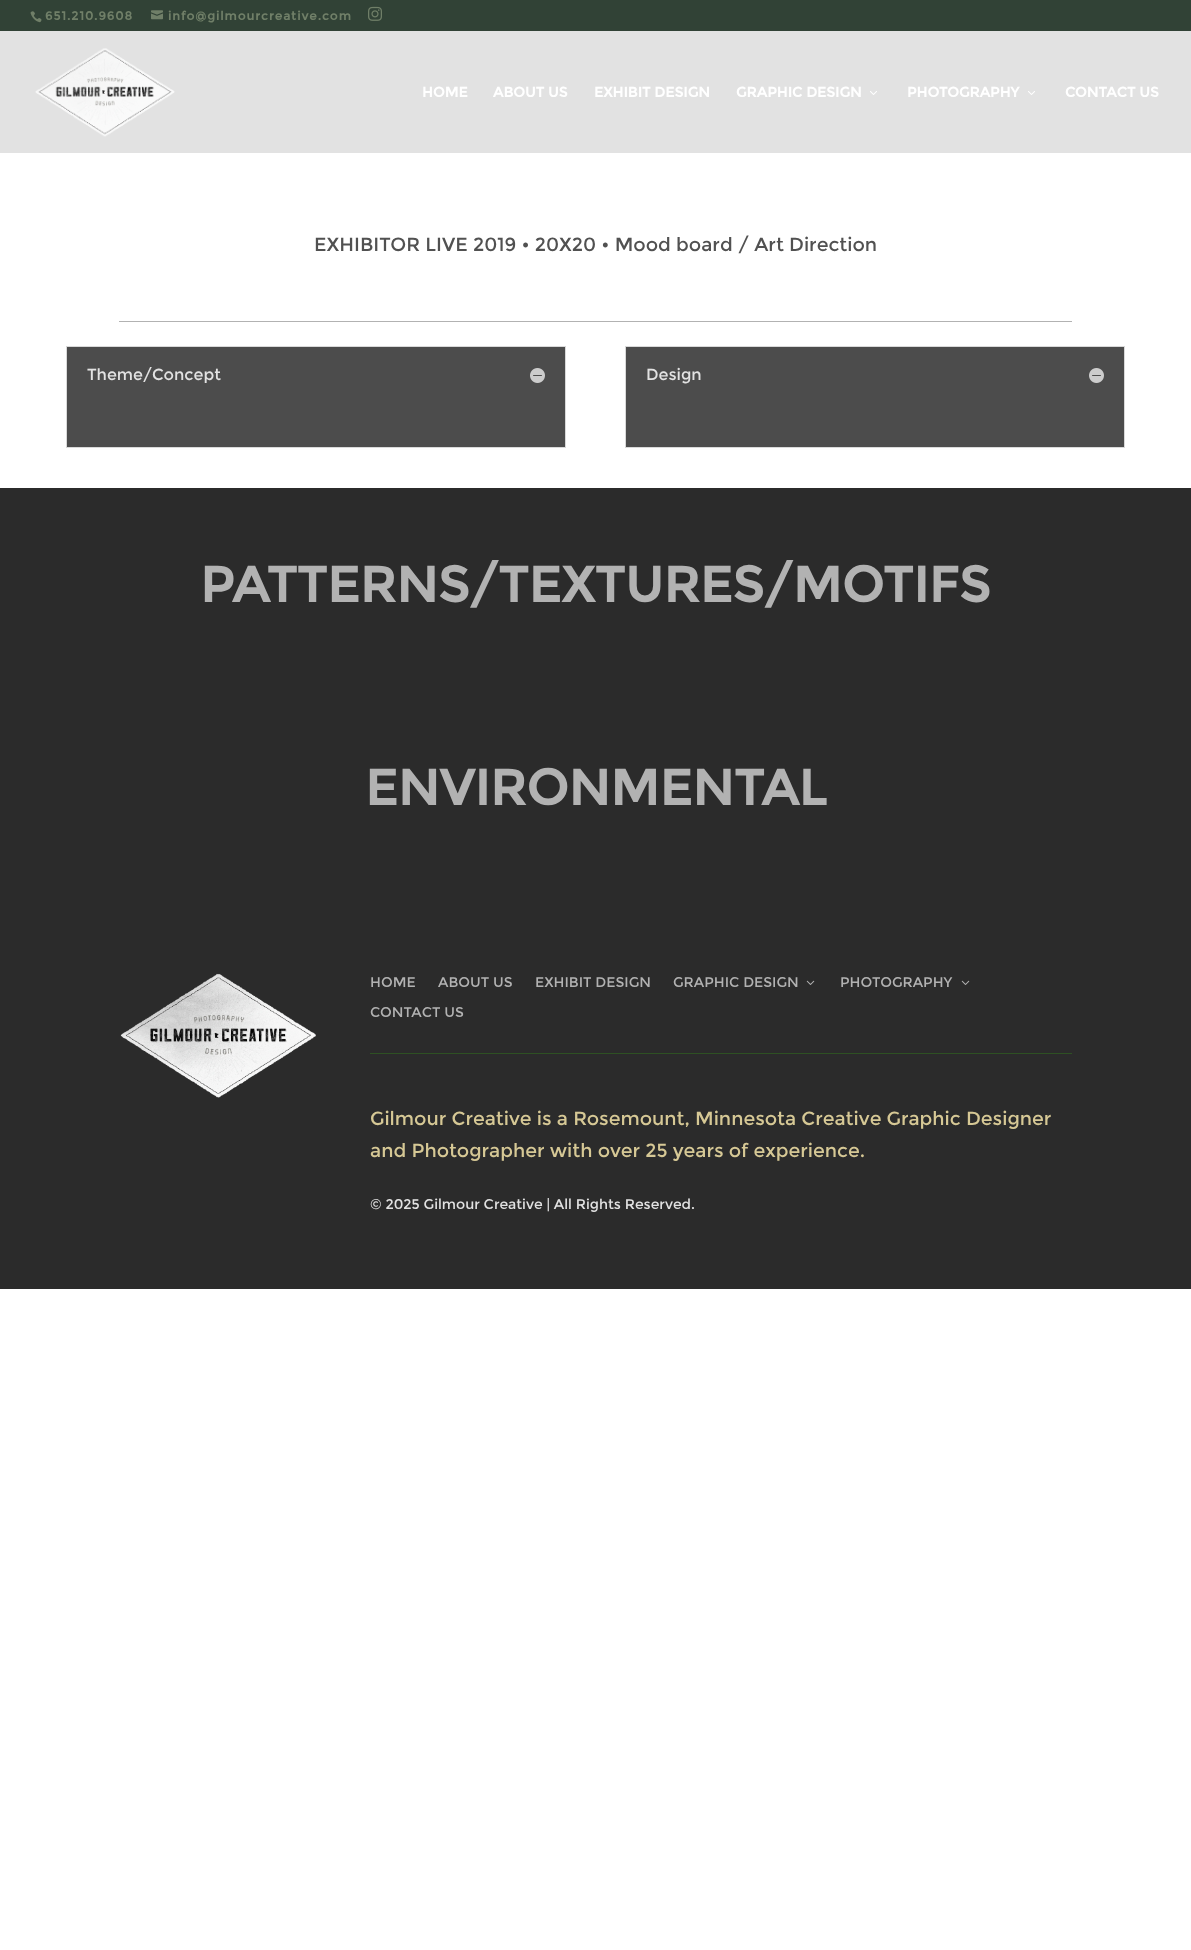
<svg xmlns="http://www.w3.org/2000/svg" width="1191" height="1950">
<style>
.a{font:bold 12px Montserrat;letter-spacing:1px;fill:#707f68}
.b{font:bold 14px Montserrat;fill:#fff}
.c{font:19px Montserrat;fill:#515151}
.d{font:16px Montserrat;fill:#e2e2e2}
.e{font:bold 50px Montserrat;fill:#b2b2b2}
.f{font:14px Montserrat;fill:#b2b2b2}
.g{font:19px Montserrat;fill:#d6c895}
.h{font:14px Montserrat;fill:#e2e2e2}
</style>
<rect width="100%" height="100%" fill="#fff"/>
<path fill="#314236" d="M0 0h1191v31H0z"/>
<image href="1.png" x="30" y="11" width="12" height="12"/>
<image href="2.png" x="151" y="10" width="12" height="10"/>
<image href="3.png" x="368" y="6" width="14" height="15"/>
<path fill="#e2e2e2" d="M0 31h1191v122H0z"/>
<image href="4.png" x="35" y="48" width="140" height="89"/>
<image href="5.png" x="870" y="91" width="7" height="4"/>
<image href="5.png" x="1028" y="91" width="7" height="4"/>
<path fill="#b2b2b2" d="M119 321h953v1H119z"/>
<path fill="#4c4c4c" stroke="#d9d9d9" d="M66.5 346.5h499v101H66.5z"/>
<image href="6.png" x="530" y="368" width="15" height="15"/>
<path fill="#4c4c4c" stroke="#d9d9d9" d="M625.5 346.5h499v101H625.5z"/>
<image href="6.png" x="1089" y="368" width="15" height="15"/>
<path fill="#2b2b2b" d="M0 488h1191v801H0z"/>
<image href="7.png" x="120" y="973" width="196" height="125"/>
<image href="8.png" x="806" y="980" width="9" height="5"/>
<image href="8.png" x="961" y="980" width="9" height="5"/>
<path fill="#2e5123" d="M370 1053h702v1H370z"/>
<text class="a" x="45" y="20">651.210.9608</text>
<text class="a" x="168" y="20">info@gilmourcreative.com</text>
<text class="b" x="422" y="97">HOME</text>
<text class="b" x="493" y="97">ABOUT US</text>
<text class="b" x="594" y="97">EXHIBIT DESIGN</text>
<text class="b" x="736" y="97">GRAPHIC DESIGN</text>
<text class="b" x="907" y="97">PHOTOGRAPHY</text>
<text class="b" x="1065" y="97">CONTACT US</text>
<text class="c" x="314" y="251">EXHIBITOR LIVE 2019 • 20X20 • Mood board / Art Direction</text>
<text class="d" x="87" y="380">Theme/Concept</text>
<text class="d" x="646" y="380">Design</text>
<text class="e" x="200" y="602">PATTERNS/TEXTURES/MOTIFS</text>
<text class="e" x="365" y="805">ENVIRONMENTAL</text>
<text class="f" x="370" y="987">HOME</text>
<text class="f" x="438" y="987">ABOUT US</text>
<text class="f" x="535" y="987">EXHIBIT DESIGN</text>
<text class="f" x="673" y="987">GRAPHIC DESIGN</text>
<text class="f" x="840" y="987">PHOTOGRAPHY</text>
<text class="f" x="370" y="1017">CONTACT US</text>
<text class="g" x="370" y="1125">Gilmour Creative is a Rosemount, Minnesota Creative Graphic Designer</text>
<text class="g" x="370" y="1157">and Photographer with over 25 years of experience.</text>
<text class="h" x="370" y="1209">© 2025 Gilmour Creative | All Rights Reserved.</text>
</svg>
